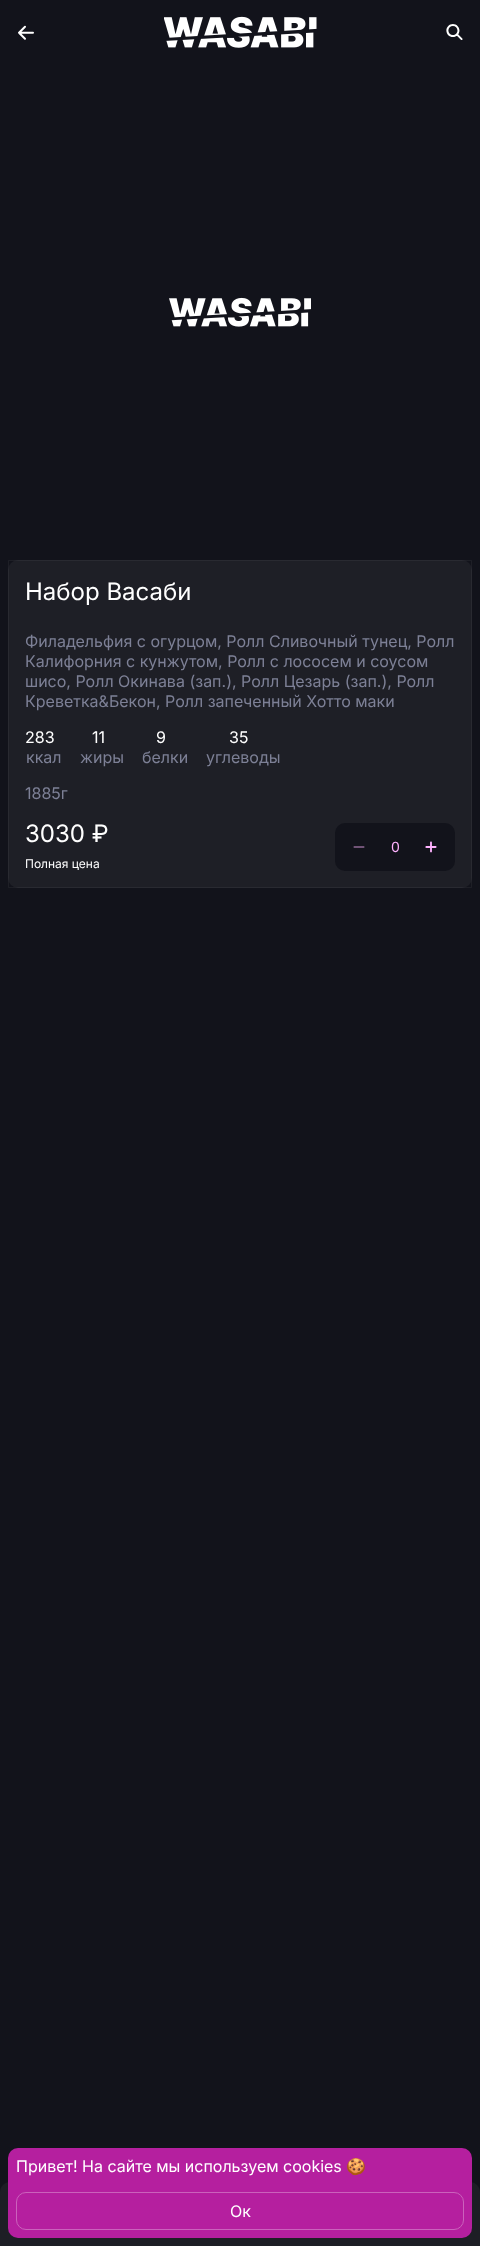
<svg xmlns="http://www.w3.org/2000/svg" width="480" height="2246">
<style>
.a{font:24px Inter;fill:#fff}
.b{font:16px Inter;fill:#7d8096}
.c{font:16px Inter;fill:#fff}
.d{font:12px Inter;fill:#fff}
.e{font:14px Inter;fill:#ffb3ff}
.f{font:16px Noto Color Emoji;fill:#fff}
</style>
<rect width="100%" height="100%" fill="#12131b"/>
<image href="1.png" x="18" y="25" width="16" height="15"/>
<image href="2.png" x="164" y="16" width="153" height="32"/>
<image href="3.png" x="446" y="24" width="17" height="16"/>
<image href="4.png" x="169" y="297" width="142" height="30"/>
<rect fill="#1e1f26" x="8" y="560" width="464" height="328" rx="10"/>
<path fill="none" stroke="#ffffff0d" d="M8.5 560.5h463v327H8.5z"/>
<rect fill="#12131b" x="335" y="823" width="120" height="48" rx="10"/>
<image href="5.png" x="353" y="846" width="12" height="2"/>
<image href="6.png" x="425" y="841" width="12" height="12"/>
<path fill="#1d1e25" d="M10 2182h460c5.5 0 10 4.5 10 10v54h-480v-54c0-5.5 4.5-10 10-10z"/>
<rect fill="#b51f9f" x="8" y="2148" width="464" height="90" rx="10"/>
<rect fill="none" stroke="#cb62bc" x="16.5" y="2192.5" width="447" height="37" rx="9.5"/>
<text class="a" x="25" y="600">Набор Васаби</text>
<text class="b" x="25" y="647">Филадельфия с огурцом, Ролл Сливочный тунец, Ролл</text>
<text class="b" x="25" y="667">Калифорния с кунжутом, Ролл с лососем и соусом</text>
<text class="b" x="25" y="687">шисо, Ролл Окинава (зап.), Ролл Цезарь (зап.), Ролл</text>
<text class="b" x="25" y="707">Креветка&amp;Бекон, Ролл запеченный Хотто маки</text>
<text class="c" x="25" y="743">283</text>
<text class="b" x="26" y="763">ккал</text>
<text class="c" x="92" y="743">11</text>
<text class="b" x="80" y="763">жиры</text>
<text class="c" x="156" y="743">9</text>
<text class="b" x="142" y="763">белки</text>
<text class="c" x="229" y="743">35</text>
<text class="b" x="206" y="763">углеводы</text>
<text class="b" x="25" y="799">1885г</text>
<text class="a" x="25" y="842">3030 ₽</text>
<text class="d" x="25" y="868">Полная цена</text>
<text class="e" x="391" y="852">0</text>
<text class="c" x="16" y="2172">Привет! На сайте мы используем cookies</text>
<text class="f" x="346" y="2172">🍪</text>
<text class="c" x="230" y="2217">Oк</text>
</svg>
